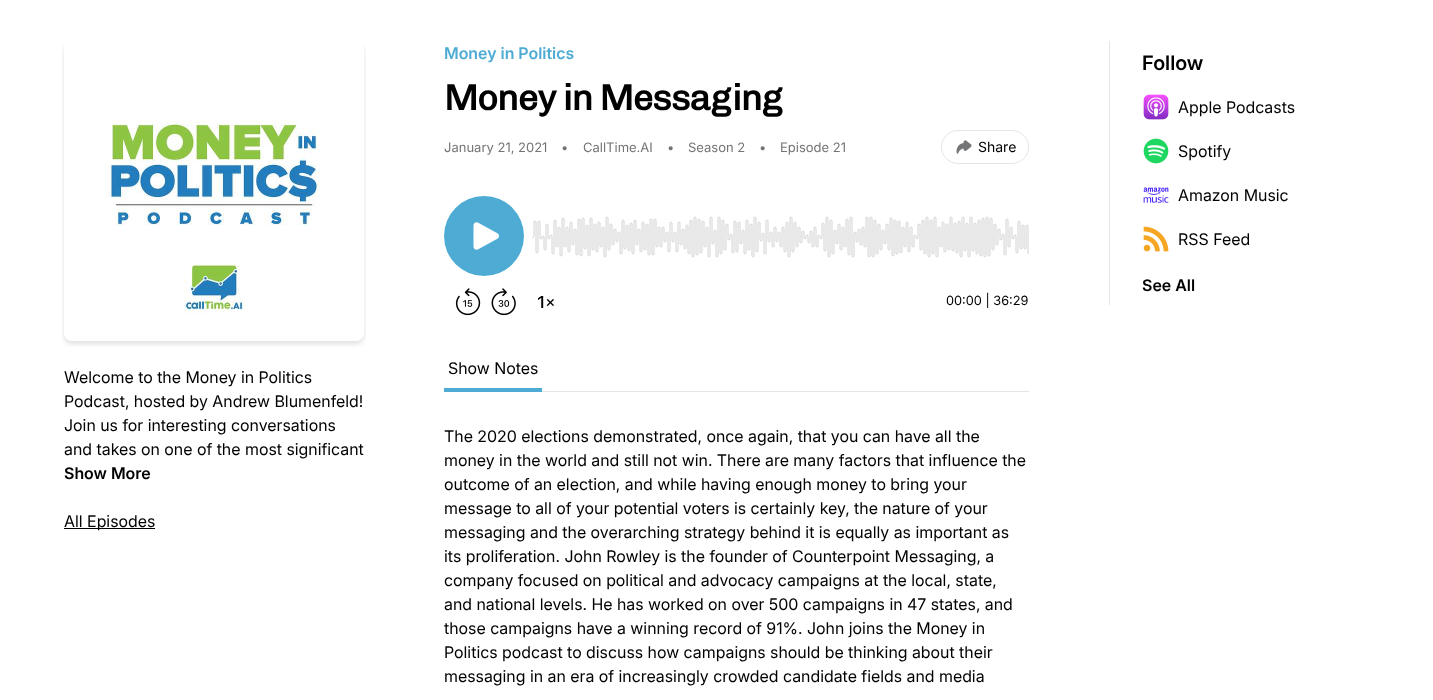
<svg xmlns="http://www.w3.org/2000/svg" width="1433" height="700">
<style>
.a{font:600 16px Inter;fill:#4eacd4}
.b{font:bold 36px Chivo;letter-spacing:-0.9px;fill:#000}
.c{font:13px 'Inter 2';fill:#747576}
.d{font:14px 'Inter 2';fill:#000}
.e{font:12.75px 'Inter 2';fill:#000}
.f{font:16px Inter;fill:#000}
.g{font:600 20px 'Inter 2';fill:#000}
.h{font:600 16px Inter;fill:#000}
</style>
<rect width="100%" height="100%" fill="#fff"/>
<rect fill="none" stroke="#e4e5e6" x="941.5" y="130.5" width="87" height="33" rx="16.5"/>
<image href="1.png" x="956" y="140" width="16" height="14"/>
<image href="2.png" x="455" y="288" width="26" height="28"/>
<image href="3.png" x="491" y="288" width="25" height="28"/>
<image href="4.png" x="538" y="296" width="16" height="12"/>
<circle fill="#4eacd4" cx="484" cy="236" r="40"/>
<image href="5.png" x="473" y="222" width="26" height="28"/>
<image href="6.png" x="532" y="216" width="497" height="42"/>
<path fill="#e4e5e6" d="M542 391h487v1H542z"/>
<path fill="#4eacd4" d="M444 388h98v4H444z"/>
<path fill="#e4e5e6" d="M1109 41h1v264H1109z"/>
<image href="7.png" x="1143" y="94" width="26" height="26"/>
<image href="8.png" x="1143" y="138" width="26" height="26"/>
<image href="9.png" x="1143" y="187" width="26" height="16"/>
<image href="10.png" x="1143" y="226" width="26" height="26"/>
<image href="11.png" x="62" y="45" width="304" height="302"/>
<path fill="#000" d="M64 528h91v1H64z"/>
<text class="a" x="444" y="59">Money in Politics</text>
<text class="b" x="444" y="110">Money in Messaging</text>
<text class="c" x="444" y="152">January 21, 2021</text>
<text class="c" x="561" y="152">•</text>
<text class="c" x="583" y="152">CallTime.AI</text>
<text class="c" x="667" y="152">•</text>
<text class="c" x="688" y="152">Season 2</text>
<text class="c" x="759" y="152">•</text>
<text class="c" x="780" y="152">Episode 21</text>
<text class="d" x="978" y="152">Share</text>
<text class="e" x="946" y="305">00:00 | 36:29</text>
<text class="f" x="448" y="374">Show Notes</text>
<text class="f" x="444" y="442">The 2020 elections demonstrated, once again, that you can have all the</text>
<text class="f" x="444" y="466">money in the world and still not win. There are many factors that influence the</text>
<text class="f" x="444" y="490">outcome of an election, and while having enough money to bring your</text>
<text class="f" x="444" y="514">message to all of your potential voters is certainly key, the nature of your</text>
<text class="f" x="444" y="538">messaging and the overarching strategy behind it is equally as important as</text>
<text class="f" x="444" y="562">its proliferation. John Rowley is the founder of Counterpoint Messaging, a</text>
<text class="f" x="444" y="586">company focused on political and advocacy campaigns at the local, state,</text>
<text class="f" x="444" y="610">and national levels. He has worked on over 500 campaigns in 47 states, and</text>
<text class="f" x="444" y="634">those campaigns have a winning record of 91%. John joins the Money in</text>
<text class="f" x="444" y="658">Politics podcast to discuss how campaigns should be thinking about their</text>
<text class="f" x="444" y="682">messaging in an era of increasingly crowded candidate fields and media</text>
<text class="g" x="1142" y="70">Follow</text>
<text class="f" x="1178" y="113">Apple Podcasts</text>
<text class="f" x="1178" y="157">Spotify</text>
<text class="f" x="1178" y="201">Amazon Music</text>
<text class="f" x="1178" y="245">RSS Feed</text>
<text class="h" x="1142" y="291">See All</text>
<text class="f" x="64" y="383">Welcome to the Money in Politics</text>
<text class="f" x="64" y="407">Podcast, hosted by Andrew Blumenfeld!</text>
<text class="f" x="64" y="431">Join us for interesting conversations</text>
<text class="f" x="64" y="455">and takes on one of the most significant</text>
<text class="h" x="64" y="479">Show More</text>
<text class="f" x="64" y="527">All Episodes</text>
</svg>
